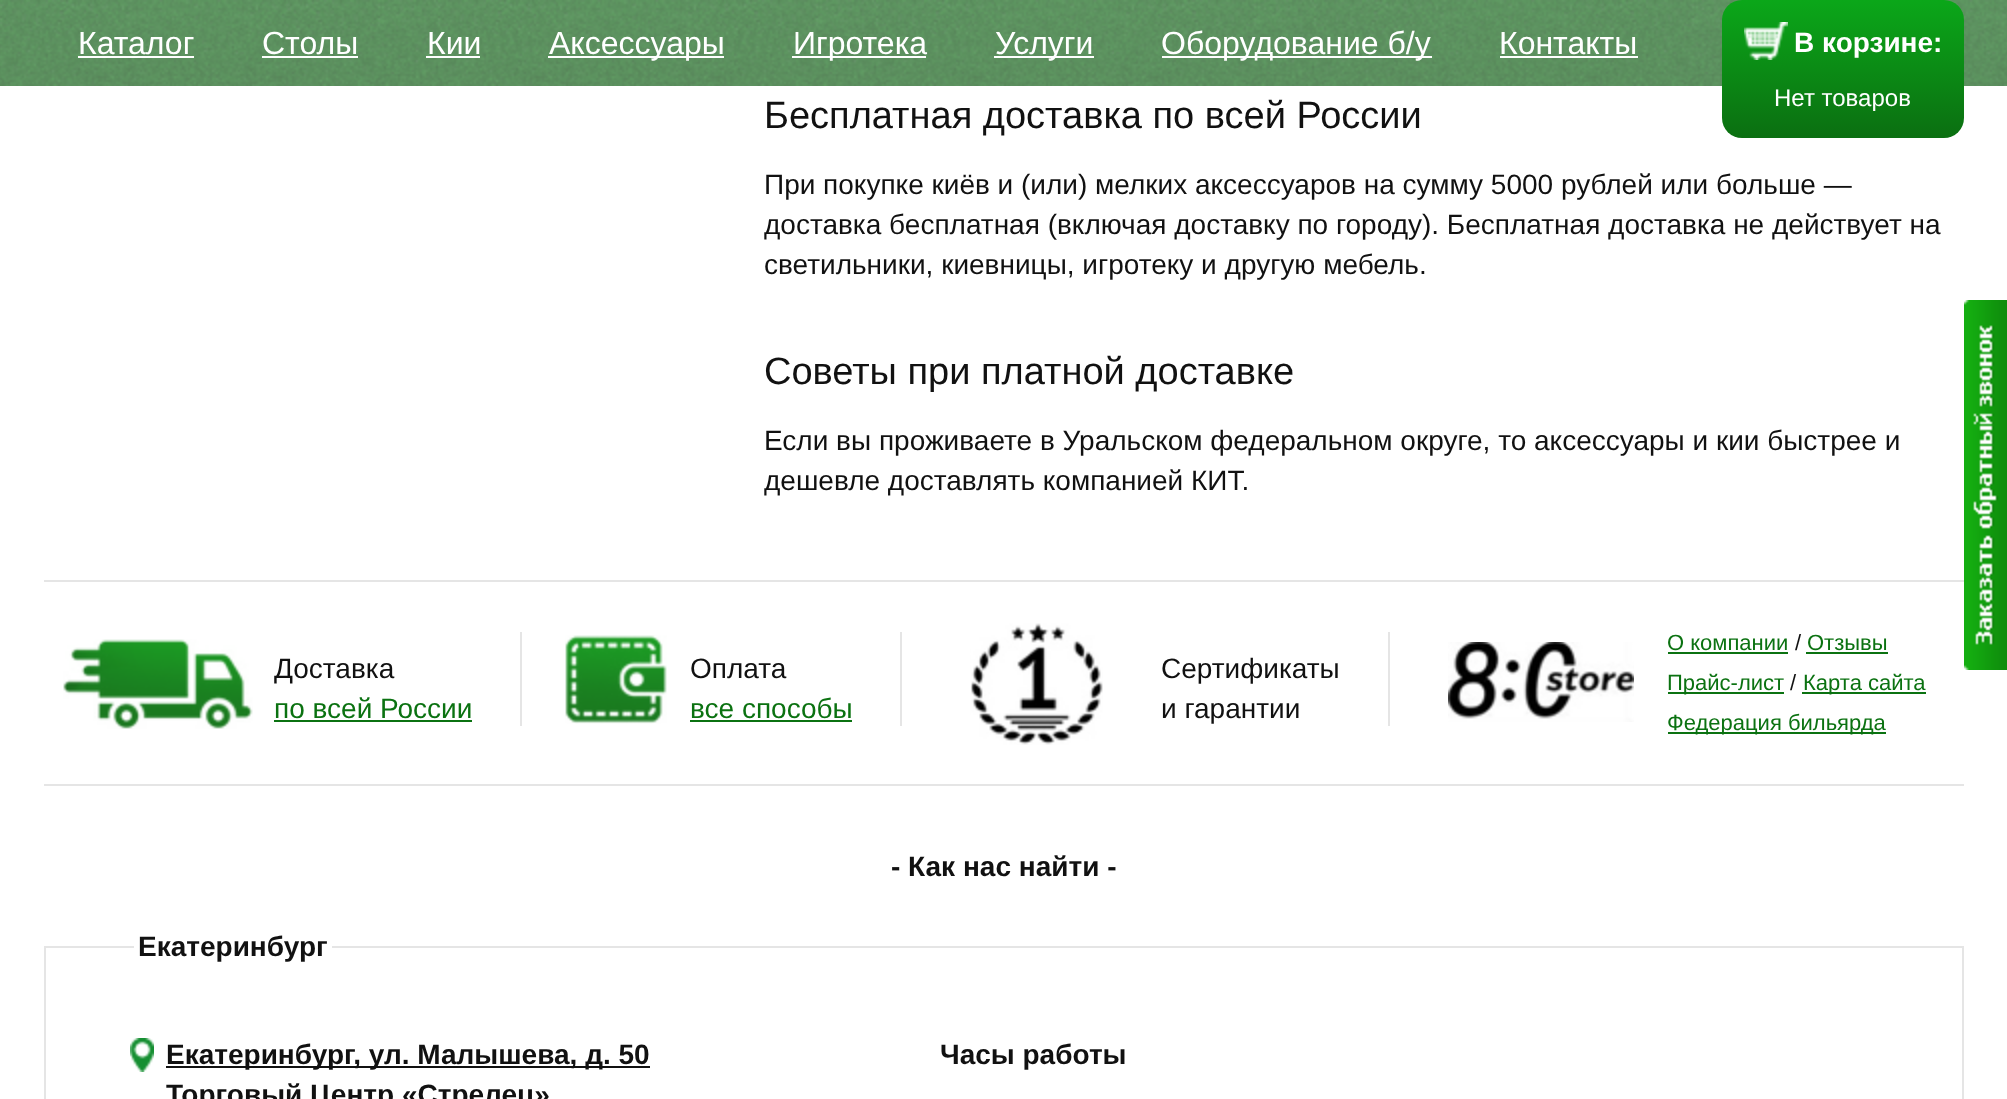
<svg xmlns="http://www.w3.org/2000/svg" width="2007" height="1099">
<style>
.a{font:32px Liberation Sans;fill:#fff}
.b{font:bold 28px Liberation Sans;fill:#fff}
.c{font:24px Liberation Sans;fill:#fff}
.d{font:38px Liberation Sans;fill:#111}
.e{font:28px Liberation Sans;fill:#111}
.f{font:28px Liberation Sans;fill:#0b7211}
.g{font:22px Liberation Sans;fill:#0b7211}
.h{font:22px Liberation Sans;fill:#111}
.i{font:bold 28px Liberation Sans;fill:#111}
</style>
<defs>
<linearGradient id="g1" gradientUnits="userSpaceOnUse" x1="1843" y1="138" x2="1843" y2="0"><stop offset="0" stop-color="#0b6f11"/><stop offset="1" stop-color="#0ba719"/></linearGradient>
</defs>
<rect width="100%" height="100%" fill="#fff"/>
<image href="1.png" x="0" y="0" width="2007" height="86"/>
<path fill="#fff" d="M78 56h116v2H78z"/>
<path fill="#fff" d="M262 56h96v2H262z"/>
<path fill="#fff" d="M426 56h54v2H426z"/>
<path fill="#fff" d="M548 56h176v2H548z"/>
<path fill="#fff" d="M792 56h134v2H792z"/>
<path fill="#fff" d="M994 56h100v2H994z"/>
<path fill="#fff" d="M1162 56h270v2H1162z"/>
<path fill="#fff" d="M1500 56h138v2H1500z"/>
<rect fill="url(#g1)" x="1722" width="242" height="138" rx="20"/>
<image href="2.png" x="1744" y="22" width="44" height="38"/>
<image href="3.png" x="1964" y="300" width="43" height="370"/>
<path fill="#e5e5e5" d="M44 580h1920v2H44z"/>
<path fill="#e5e5e5" d="M44 784h1920v2H44z"/>
<image href="4.png" x="63" y="639" width="190" height="90"/>
<path fill="#0b7211" d="M274 720h198v2H274z"/>
<path fill="#e5e5e5" d="M520 632h2v94H520z"/>
<image href="5.png" x="565" y="635" width="102" height="89"/>
<path fill="#0b7211" d="M690 720h162v2H690z"/>
<path fill="#e5e5e5" d="M900 632h2v94H900z"/>
<image href="6.png" x="970" y="623" width="133" height="122"/>
<path fill="#e5e5e5" d="M1388 632h2v94H1388z"/>
<image href="7.png" x="1448" y="642" width="186" height="80"/>
<path fill="#0b7211" d="M1668 652h120v2H1668z"/>
<path fill="#0b7211" d="M1806 652h82v2H1806z"/>
<path fill="#0b7211" d="M1668 692h116v2H1668z"/>
<path fill="#0b7211" d="M1802 692h124v2H1802z"/>
<path fill="#0b7211" d="M1668 732h218v2H1668z"/>
<path fill="none" stroke="#e5e5e5" stroke-width="2" d="M45 947h1918v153H45z"/>
<path fill="#fff" d="M134 946h198v2H134z"/>
<image href="8.png" x="130" y="1038" width="24" height="34"/>
<path fill="#111" d="M166 1066h484v2H166z"/>
<text class="a" x="78" y="54">Каталог</text>
<text class="a" x="262" y="54">Столы</text>
<text class="a" x="427" y="54">Кии</text>
<text class="a" x="549" y="54">Аксессуары</text>
<text class="a" x="793" y="54">Игротека</text>
<text class="a" x="995" y="54">Услуги</text>
<text class="a" x="1161" y="54">Оборудование б/у</text>
<text class="a" x="1499" y="54">Контакты</text>
<text class="b" x="1794" y="52">В корзине:</text>
<text class="c" x="1774" y="106">Нет товаров</text>
<text class="d" x="764" y="128">Бесплатная доставка по всей России</text>
<text class="e" x="764" y="194">При покупке киёв и (или) мелких аксессуаров на сумму 5000 рублей или больше —</text>
<text class="e" x="764" y="234">доставка бесплатная (включая доставку по городу). Бесплатная доставка не действует на</text>
<text class="e" x="764" y="274">светильники, киевницы, игротеку и другую мебель.</text>
<text class="d" x="764" y="384">Советы при платной доставке</text>
<text class="e" x="764" y="450">Если вы проживаете в Уральском федеральном округе, то аксессуары и кии быстрее и</text>
<text class="e" x="764" y="490">дешевле доставлять компанией КИТ.</text>
<text class="e" x="274" y="678">Доставка</text>
<text class="f" x="274" y="718">по всей России</text>
<text class="e" x="690" y="678">Оплата</text>
<text class="f" x="690" y="718">все способы</text>
<text class="e" x="1161" y="678">Сертификаты</text>
<text class="e" x="1161" y="718">и гарантии</text>
<text class="g" x="1667" y="650">О компании</text>
<text class="h" x="1795" y="650">/</text>
<text class="g" x="1807" y="650">Отзывы</text>
<text class="g" x="1667" y="690">Прайс-лист</text>
<text class="h" x="1790" y="690">/</text>
<text class="g" x="1803" y="690">Карта сайта</text>
<text class="g" x="1667" y="730">Федерация бильярда</text>
<text class="i" x="891" y="876">- Как нас найти -</text>
<text class="i" x="138" y="956">Екатеринбург</text>
<text class="i" x="166" y="1064">Екатеринбург, ул. Малышева, д. 50</text>
<text class="i" x="166" y="1104">Торговый Центр «Стрелец»</text>
<text class="i" x="940" y="1064">Часы работы</text>
</svg>
